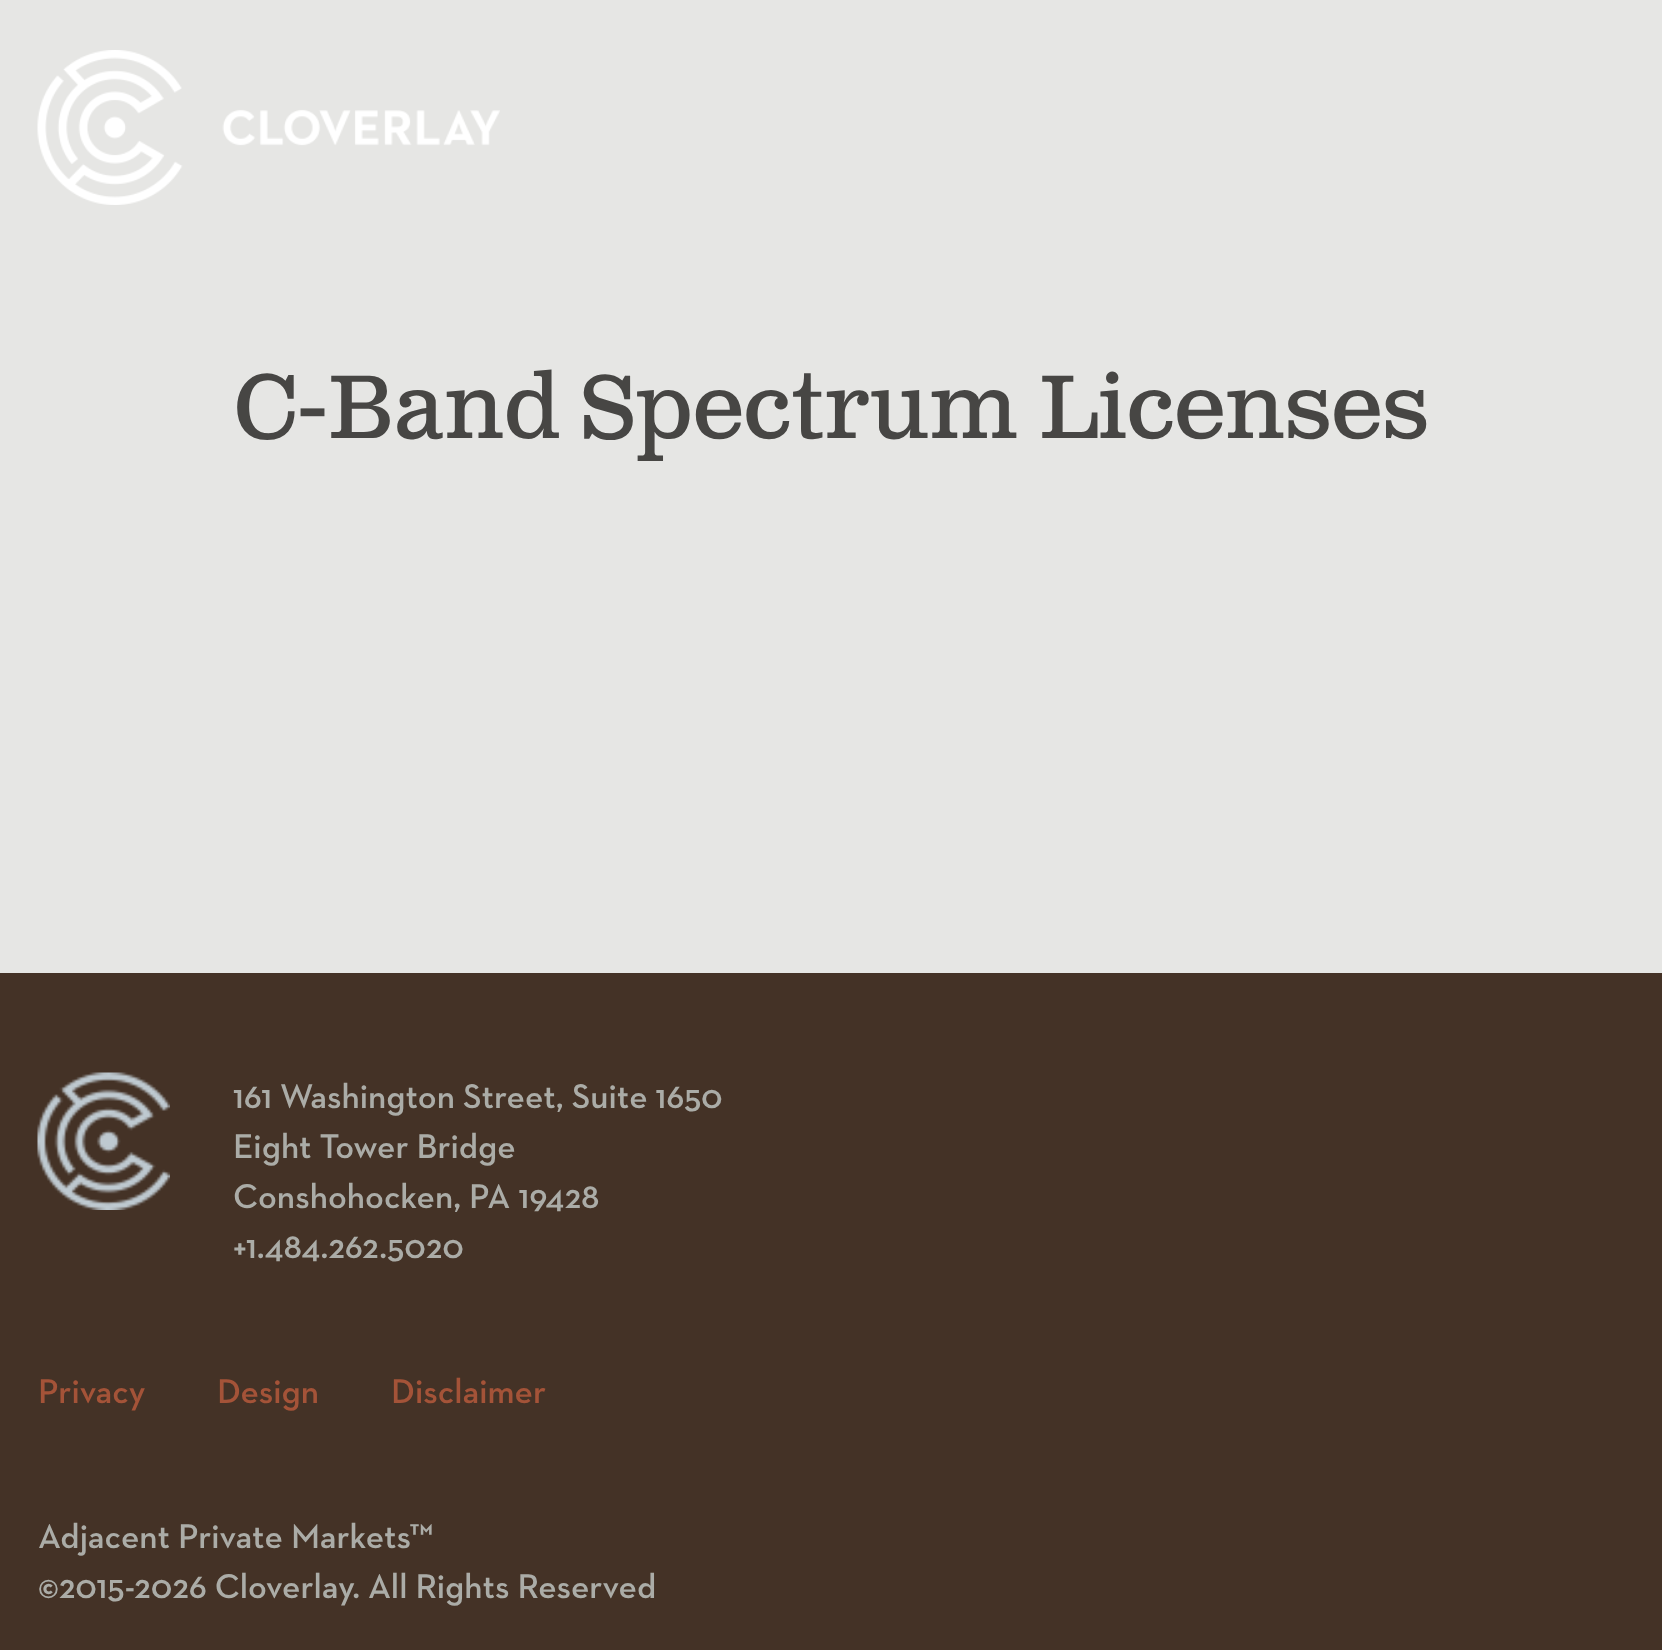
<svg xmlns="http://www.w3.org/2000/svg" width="1662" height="1650">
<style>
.a{font:90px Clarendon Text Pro;fill:#474644}
.b{font:600 35px 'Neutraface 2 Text';fill:#abaca7}
.c{font:600 35px 'Neutraface 2 Text';fill:#a45338}
</style>
<rect width="100%" height="100%" fill="#e6e6e4"/>
<image href="1.png" x="37" y="50" width="463" height="155"/>
<path fill="#443226" d="M0 973h1662v677H0z"/>
<image href="2.png" x="37" y="1072" width="133" height="138"/>
<text class="a" x="234" y="438">C-Band Spectrum Licenses</text>
<text class="b" x="233" y="1108">161 Washington Street, Suite 1650</text>
<text class="b" x="233" y="1158">Eight Tower Bridge</text>
<text class="b" x="233" y="1208">Conshohocken, PA 19428</text>
<text class="b" x="233" y="1258">+1.484.262.5020</text>
<text class="c" x="38" y="1403">Privacy</text>
<text class="c" x="217" y="1403">Design</text>
<text class="c" x="391" y="1403">Disclaimer</text>
<text class="b" x="38" y="1548">Adjacent Private Markets™</text>
<text class="b" x="38" y="1598">©2015-2026 Cloverlay. All Rights Reserved</text>
</svg>
